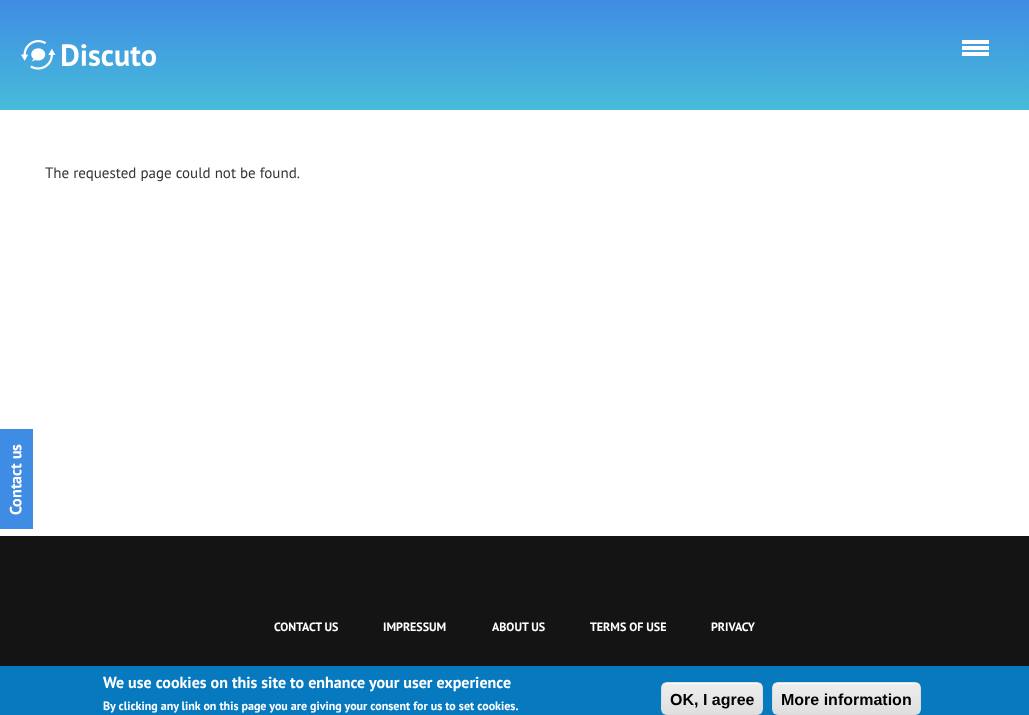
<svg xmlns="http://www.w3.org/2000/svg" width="1029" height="715">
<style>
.a{font:15px PT Sans;fill:#333}
.b{font:bold 12px PT Sans;fill:#fff}
.c{font:bold 16px PT Sans;fill:#fff}
.d{font:bold 16px Liberation Sans;fill:#000}
</style>
<defs>
<linearGradient id="g1" gradientUnits="userSpaceOnUse" x1="515" y1="0" x2="515" y2="110"><stop offset="0" stop-color="#3f8ce4"/><stop offset="1" stop-color="#47bcd9"/></linearGradient>
<clipPath id="clip1"><rect x="661" y="682" width="102" height="33" rx="6"/></clipPath>
<linearGradient id="g2" gradientUnits="userSpaceOnUse" x1="712" y1="683" x2="712" y2="714"><stop offset="0.05" stop-color="#ededed"/><stop offset="1" stop-color="#dfdfdf"/></linearGradient>
<clipPath id="clip2"><rect x="772" y="682" width="149" height="33" rx="6"/></clipPath>
<linearGradient id="g3" gradientUnits="userSpaceOnUse" x1="847" y1="683" x2="847" y2="714"><stop offset="0.05" stop-color="#ededed"/><stop offset="1" stop-color="#dfdfdf"/></linearGradient>
</defs>
<rect width="100%" height="100%" fill="#fff"/>
<path fill="url(#g1)" d="M0 0h1029v110H0z"/>
<image href="1.png" x="21" y="40" width="135" height="30"/>
<path fill="#fff" d="M962 40h27v4H962z"/>
<path fill="#fff" d="M962 46h27v4H962z"/>
<path fill="#fff" d="M962 52h27v4H962z"/>
<image href="2.png" x="0" y="429" width="33" height="100"/>
<path fill="#141414" d="M0 536h1029v130H0z"/>
<path fill="#0779bf" d="M0 666h1029v49H0z"/>
<g clip-path="url(#clip1)">
<path fill="url(#g2)" d="M662 683h100v31H662z"/>
</g>
<path fill="#fff" d="M667 684h90c3 0 5 2 5 5c0-10-15-6-20-6h-60c-5 0-20-4-20 6c0-3 2-5 5-5z"/>
<rect fill="none" stroke="#dcdcdc" x="661.5" y="682.5" width="101" height="32" rx="5.5"/>
<g clip-path="url(#clip2)">
<path fill="url(#g3)" d="M773 683h147v31H773z"/>
</g>
<path fill="#fff" d="M778 684h137c3 0 5 2 5 5v-1c0-3-2-5-5-5h-137c-3 0-5 2-5 5v1c0-3 2-5 5-5z"/>
<rect fill="none" stroke="#dcdcdc" x="772.5" y="682.5" width="148" height="32" rx="5.5"/>
<text class="a" x="45" y="178">The requested page could not be found.</text>
<text class="b" x="274" y="631">CONTACT US</text>
<text class="b" x="383" y="631">IMPRESSUM</text>
<text class="b" x="492" y="631">ABOUT US</text>
<text class="b" x="590" y="631">TERMS OF USE</text>
<text class="b" x="711" y="631">PRIVACY</text>
<text class="c" x="103" y="688">We use cookies on this site to enhance your user experience</text>
<text class="b" x="103" y="710">By clicking any link on this page you are giving your consent for us to set cookies.</text>
<text class="d" x="670" y="705">OK, I agree</text>
<text class="d" x="781" y="705">More information</text>
</svg>
